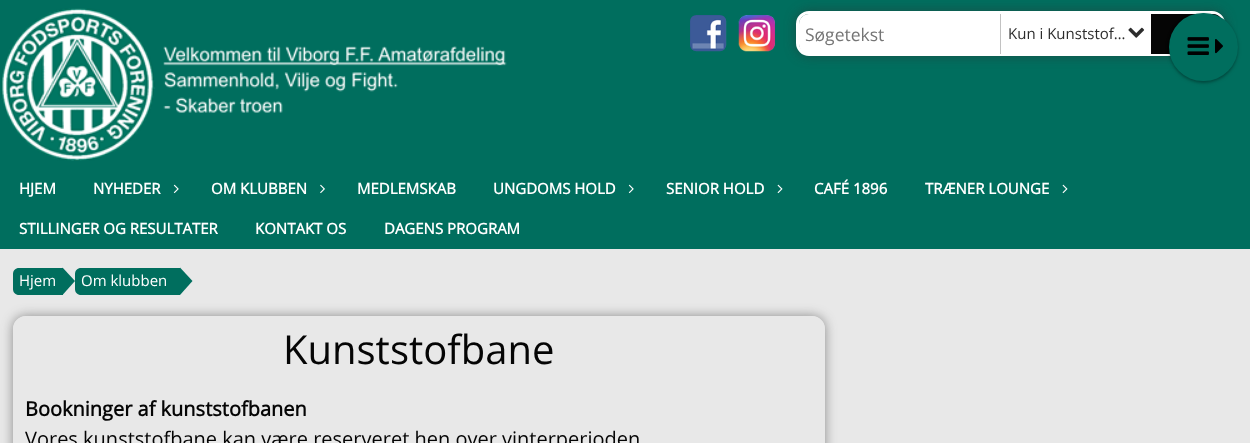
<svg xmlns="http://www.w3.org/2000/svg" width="1250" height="443">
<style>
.a{font:17.5px Open Sans;fill:#757575}
.b{font:15px Open Sans;fill:#2c2c2c}
.c{font:bold 15px Open Sans;fill:#fff}
.d{font:15px Open Sans;fill:#fff}
.e{font:40px Open Sans;fill:#050505}
.f{font:bold 20px Open Sans;fill:#050505}
.g{font:20px Open Sans;fill:#050505}
</style>
<defs>
<clipPath id="clip1"><path d="M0 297h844v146h-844zm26 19h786c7 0 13 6 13 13v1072c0 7-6 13-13 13h-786c-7 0-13-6-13-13v-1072c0-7 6-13 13-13z" clip-rule="evenodd"/></clipPath>
</defs>
<rect width="100%" height="100%" fill="#e8e8e8"/>
<path fill="#006e5e" d="M0 0h1250v249H0z"/>
<image href="1.png" x="1" y="8" width="506" height="153"/>
<image href="2.png" x="690" y="15" width="37" height="37"/>
<image href="3.png" x="738" y="15" width="37" height="37"/>
<rect fill="#30303080" filter="blur(6px)" x="796" y="11" width="429" height="45" rx="13"/>
<rect fill="none" stroke="#fff" stroke-width="3" x="797.5" y="12.5" width="426" height="42" rx="11.5"/>
<path fill="#fff" d="M809 14h196v40h-196c-5.5 0-10-4.5-10-10v-20c0-5.5 4.5-10 10-10z"/>
<path fill="#fff" d="M1005 14h146v39H1005z"/>
<path fill="#c2c2c2" d="M1000 14h1v40H1000z"/>
<image href="4.png" x="1128" y="27" width="17" height="11"/>
<path fill="#050505" d="M1151 14h62c5.5 0 10 4.5 10 10v20c0 5.5-4.5 10-10 10h-62z"/>
<rect fill="#0000003d" filter="blur(1px)" x="1169" y="14" width="69" height="69" rx="34.5"/>
<rect fill="#0000001f" filter="blur(2px)" x="1169" y="14" width="69" height="69" rx="34.5"/>
<rect fill="#006e5e" x="1169" y="13" width="69" height="68" rx="34"/>
<image href="5.png" x="1187" y="37" width="22" height="18"/>
<image href="6.png" x="1215" y="39" width="8" height="15"/>
<image href="7.png" x="173" y="184" width="6" height="10"/>
<image href="8.png" x="320" y="184" width="5" height="10"/>
<image href="7.png" x="628" y="184" width="6" height="10"/>
<image href="9.png" x="777" y="184" width="6" height="10"/>
<image href="9.png" x="1062" y="184" width="6" height="10"/>
<path fill="#006e5e" d="M19 268h44v27h-44c-3.5 0-6-2.5-6-6v-15c0-3.5 2.5-6 6-6z"/>
<path fill="#006e5e" d="M62.5 295v-27.5l12.5 13.5z"/>
<path fill="#006e5e" d="M81 268h99v27h-99c-3.5 0-6-2.5-6-6v-15c0-3.5 2.5-6 6-6z"/>
<path fill="#006e5e" d="M180 295v-27.5l12.5 13.5z"/>
<g clip-path="url(#clip1)">
<rect fill="#30303080" filter="blur(6px)" x="13" y="316" width="812" height="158" rx="13"/>
</g>
<rect fill="#e8e8e8e6" x="13" y="316" width="812" height="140" rx="13"/>
<text class="a" x="805" y="41">Søgetekst</text>
<text class="b" x="1008" y="39">Kun i Kunststof…</text>
<text class="c" x="19" y="194">HJEM</text>
<text class="c" x="93" y="194">NYHEDER</text>
<text class="c" x="211" y="194">OM KLUBBEN</text>
<text class="c" x="357" y="194">MEDLEMSKAB</text>
<text class="c" x="493" y="194">UNGDOMS HOLD</text>
<text class="c" x="666" y="194">SENIOR HOLD</text>
<text class="c" x="814" y="194">CAFÉ 1896</text>
<text class="c" x="925" y="194">TRÆNER LOUNGE</text>
<text class="c" x="19" y="234">STILLINGER OG RESULTATER</text>
<text class="c" x="255" y="234">KONTAKT OS</text>
<text class="c" x="384" y="234">DAGENS PROGRAM</text>
<text class="d" x="19" y="286">Hjem</text>
<text class="d" x="81" y="286">Om klubben</text>
<text class="e" x="283" y="364">Kunststofbane</text>
<text class="f" x="25" y="416">Bookninger af kunststofbanen</text>
<text class="g" x="25" y="446">Vores kunststofbane kan være reserveret hen over vinterperioden</text>
</svg>
